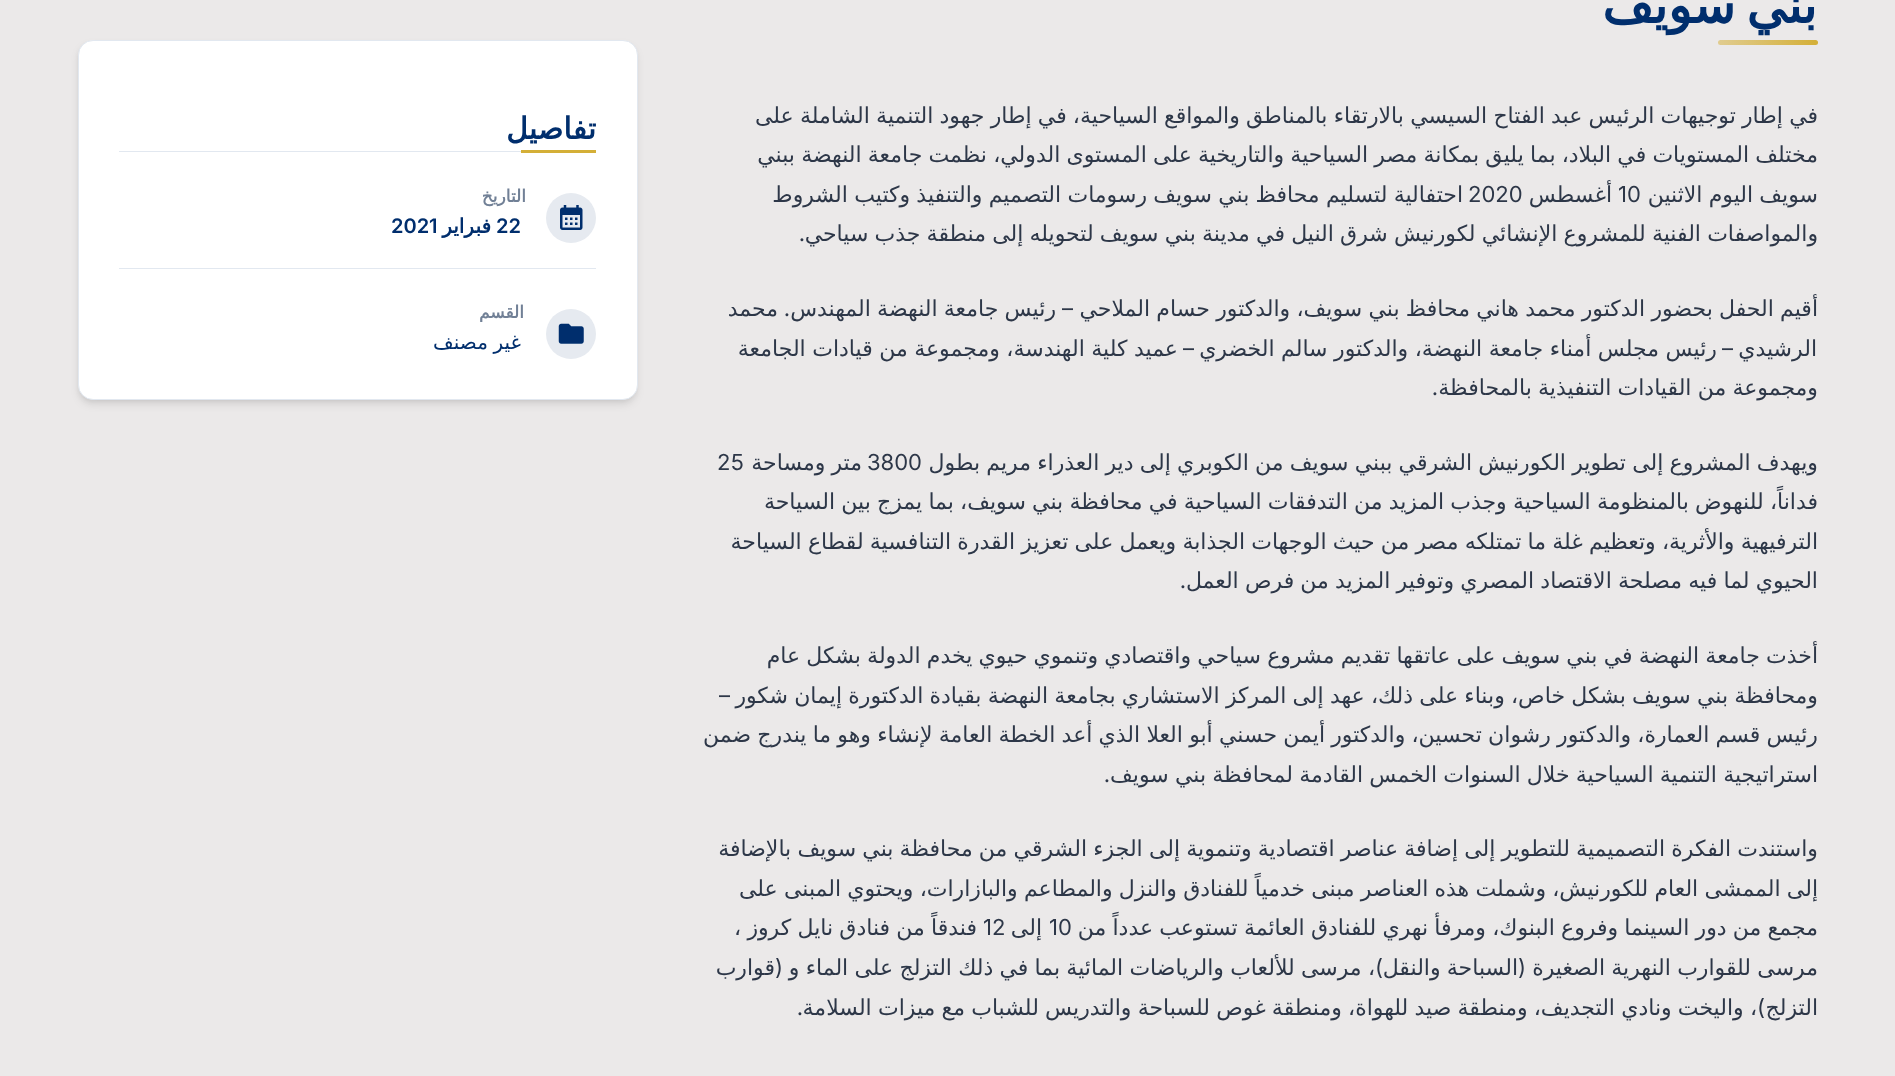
<svg xmlns="http://www.w3.org/2000/svg" width="1895" height="1076">
<style>
.a{font:bold 50px DejaVu Sans;direction:rtl;fill:#002e6d}
.b{font:22px DejaVu Sans;direction:rtl;fill:#2d3748}
.c{font:22px Inter;fill:#2d3748}
.d{font:22px Inter;direction:rtl;fill:#2d3748}
.e{font:bold 30px DejaVu Sans;direction:rtl;fill:#002e6d}
.f{font:bold 17px DejaVu Sans;letter-spacing:0.5px;direction:rtl;fill:#718096}
.g{font:600 20px Inter;fill:#002e6d}
.h{font:bold 20px DejaVu Sans;direction:rtl;fill:#002e6d}
.i{font:20px DejaVu Sans;direction:rtl;fill:#002e6d}
</style>
<defs>
<linearGradient id="g1" gradientUnits="userSpaceOnUse" x1="1818" y1="42" x2="1718" y2="43"><stop offset="0" stop-color="#d4af37"/><stop offset="1" stop-color="#e0cc90"/></linearGradient>
</defs>
<rect width="100%" height="100%" fill="#ebe9e9"/>
<rect fill="url(#g1)" x="1718" y="40" width="100" height="5" rx="2.5"/>
<rect fill="#0000000f" filter="blur(2.5px)" x="79" y="44" width="557" height="357" rx="14"/>
<rect fill="#0000001a" filter="blur(4px)" x="79" y="46" width="557" height="358" rx="14"/>
<rect fill="#fff" stroke="#e2e8f0" x="78.5" y="40.5" width="559" height="359" rx="14.5"/>
<path fill="#e2e8f0" d="M119 151h402v1H119z"/>
<path fill="#d4af37" d="M521 150h75v3H521z"/>
<path fill="#e2e8f0" d="M119 268h477v1H119z"/>
<circle fill="#e6eaf0" cx="571" cy="218" r="25"/>
<image href="1.png" x="560" y="205" width="23" height="25"/>
<circle fill="#e6eaf0" cx="571" cy="334" r="25"/>
<image href="2.png" x="558" y="323" width="26" height="21"/>
<text class="a" x="1817" y="23" word-spacing="-5">بني سويف</text>
<text class="b" x="1818" y="123" word-spacing="-0.8">في إطار توجيهات الرئيس عبد الفتاح السيسي بالارتقاء بالمناطق والمواقع السياحية، في إطار جهود التنمية الشاملة على</text>
<text class="b" x="1818" y="162" word-spacing="-0.8">مختلف المستويات في البلاد، بما يليق بمكانة مصر السياحية والتاريخية على المستوى الدولي، نظمت جامعة النهضة ببني</text>
<text class="b" x="1818" y="202" word-spacing="-0.8">سويف اليوم الاثنين</text>
<text class="c" x="1618" y="202">10</text>
<text class="b" x="1612" y="202">أغسطس</text>
<text class="c" x="1468" y="202">2020</text>
<text class="b" x="1463" y="202" word-spacing="-0.75">احتفالية لتسليم محافظ بني سويف رسومات التصميم والتنفيذ وكتيب الشروط</text>
<text class="b" x="1818" y="241" word-spacing="-0.8">والمواصفات الفنية للمشروع الإنشائي لكورنيش شرق النيل في مدينة بني سويف لتحويله إلى منطقة جذب سياحي</text>
<text class="d" x="805" y="241">.</text>
<text class="b" x="1818" y="316" word-spacing="-0.75">أقيم الحفل بحضور الدكتور محمد هاني محافظ بني سويف، والدكتور حسام الملاحي</text>
<text class="d" x="1073" y="316">–</text>
<text class="b" x="1056" y="316" word-spacing="-0.75">رئيس جامعة النهضة المهندس</text>
<text class="b" x="778" y="316">محمد</text>
<text class="d" x="790" y="316">.</text>
<text class="b" x="1817" y="356">الرشيدي</text>
<text class="d" x="1733" y="356">–</text>
<text class="b" x="1717" y="356" word-spacing="-0.5">رئيس مجلس أمناء جامعة النهضة، والدكتور سالم الخضري</text>
<text class="d" x="1194" y="356">–</text>
<text class="b" x="1178" y="356" word-spacing="-0.5">عميد كلية الهندسة، ومجموعة من قيادات الجامعة</text>
<text class="b" x="1818" y="395" word-spacing="-0.8">ومجموعة من القيادات التنفيذية بالمحافظة</text>
<text class="d" x="1438" y="395">.</text>
<text class="b" x="1818" y="470" word-spacing="-0.8">ويهدف المشروع إلى تطوير الكورنيش الشرقي ببني سويف من الكوبري إلى دير العذراء مريم بطول</text>
<text class="c" x="867" y="470">3800</text>
<text class="b" x="862" y="470" word-spacing="-1">متر ومساحة</text>
<text class="c" x="717" y="470">25</text>
<text class="b" x="1818" y="509" word-spacing="-0.8">فداناً، للنهوض بالمنظومة السياحية وجذب المزيد من التدفقات السياحية في محافظة بني سويف، بما يمزج بين السياحة</text>
<text class="b" x="1818" y="549" word-spacing="-0.8">الترفيهية والأثرية، وتعظيم غلة ما تمتلكه مصر من حيث الوجهات الجذابة ويعمل على تعزيز القدرة التنافسية لقطاع السياحة</text>
<text class="b" x="1818" y="588" word-spacing="-0.8">الحيوي لما فيه مصلحة الاقتصاد المصري وتوفير المزيد من فرص العمل</text>
<text class="d" x="1186" y="588">.</text>
<text class="b" x="1818" y="663" word-spacing="-0.8">أخذت جامعة النهضة في بني سويف على عاتقها تقديم مشروع سياحي واقتصادي وتنموي حيوي يخدم الدولة بشكل عام</text>
<text class="b" x="1818" y="703" word-spacing="-0.75">ومحافظة بني سويف بشكل خاص، وبناء على ذلك، عهد إلى المركز الاستشاري بجامعة النهضة بقيادة الدكتورة إيمان شكور</text>
<text class="d" x="730" y="703">–</text>
<text class="b" x="1818" y="742" word-spacing="-0.8">رئيس قسم العمارة، والدكتور رشوان تحسين، والدكتور أيمن حسني أبو العلا الذي أعد الخطة العامة لإنشاء وهو ما يندرج ضمن</text>
<text class="b" x="1818" y="782" word-spacing="-0.8">استراتيجية التنمية السياحية خلال السنوات الخمس القادمة لمحافظة بني سويف</text>
<text class="d" x="1110" y="782">.</text>
<text class="b" x="1818" y="856" word-spacing="-0.8">واستندت الفكرة التصميمية للتطوير إلى إضافة عناصر اقتصادية وتنموية إلى الجزء الشرقي من محافظة بني سويف بالإضافة</text>
<text class="b" x="1818" y="896" word-spacing="-0.8">إلى الممشى العام للكورنيش، وشملت هذه العناصر مبنى خدمياً للفنادق والنزل والمطاعم والبازارات، ويحتوي المبنى على</text>
<text class="b" x="1818" y="935" word-spacing="-0.8">مجمع من دور السينما وفروع البنوك، ومرفأ نهري للفنادق العائمة تستوعب عدداً من</text>
<text class="c" x="1049" y="935">10</text>
<text class="b" x="1042" y="935">إلى</text>
<text class="c" x="983" y="935">12</text>
<text class="b" x="977" y="935" word-spacing="-0.75">فندقاً من فنادق نايل كروز ،</text>
<text class="b" x="1375" y="975" word-spacing="-0.75">، مرسى للألعاب والرياضات المائية بما في ذلك التزلج على الماء و</text>
<text class="d" x="783" y="975">(</text>
<text class="b" x="775" y="975">قوارب</text>
<text class="b" x="1818" y="975" word-spacing="-0.75">مرسى للقوارب النهرية الصغيرة</text>
<text class="d" x="1526" y="975">(</text>
<text class="b" x="1518" y="975" word-spacing="-0.75">السباحة والنقل</text>
<text class="d" x="1383" y="975">)</text>
<text class="b" x="1757" y="1015" word-spacing="-0.8">، واليخت ونادي التجديف، ومنطقة صيد للهواة، ومنطقة غوص للسباحة والتدريس للشباب مع ميزات السلامة</text>
<text class="b" x="1818" y="1015">التزلج</text>
<text class="d" x="1765" y="1015">)</text>
<text class="d" x="803" y="1015">.</text>
<text class="e" x="596" y="139">تفاصيل</text>
<text class="f" x="526" y="202">التاريخ</text>
<text class="g" x="496" y="233">22</text>
<text class="h" x="491" y="233">فبراير</text>
<text class="g" x="391" y="233">2021</text>
<text class="f" x="524" y="318">القسم</text>
<text class="i" x="521" y="349" word-spacing="-0.75">غير مصنف</text>
</svg>
